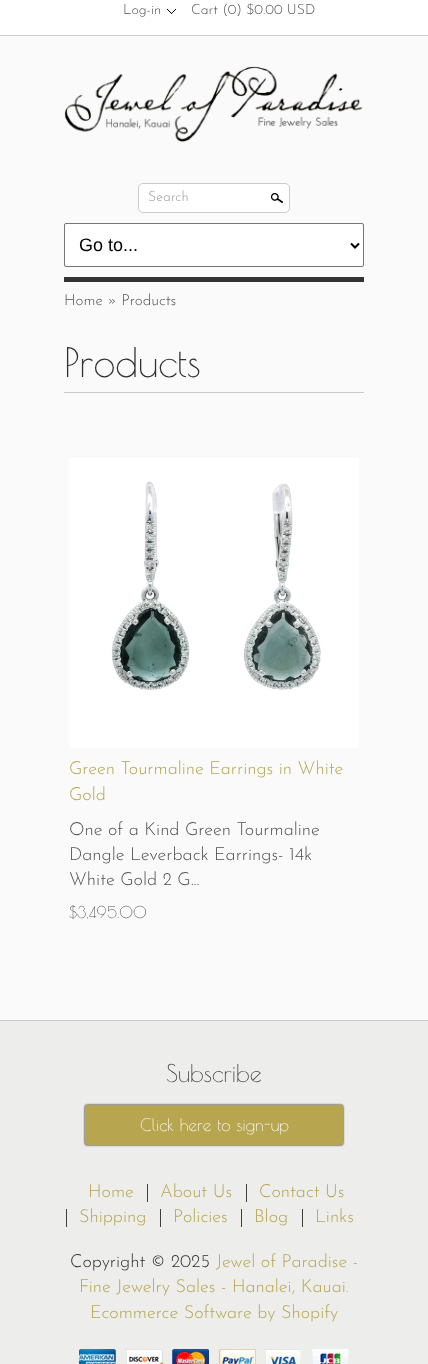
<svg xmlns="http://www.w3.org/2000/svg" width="428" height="1364">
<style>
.a{font:100 14px Josefin Sans;fill:#525252}
.b{font:100 14px Josefin Sans;fill:#989898}
.c{font:18px Liberation Sans;fill:#000}
.d{font:100 15.25px Josefin Sans;fill:#525252}
.e{font:40px Poiret One;fill:#303030}
.f{font:100 18px Josefin Sans;fill:#b7a64f}
.g{font:100 18px Josefin Sans;fill:#525252}
.h{font:16px Poiret One;fill:#525252}
.i{font:24px Poiret One;fill:#404040}
.j{font:17px Poiret One;fill:#fff}
.k{font:100 18px Josefin Sans;fill:#303030}
</style>
<rect width="100%" height="100%" fill="#fff"/>
<image href="1.png" x="167" y="9" width="9" height="5"/>
<path fill="#fafafa" d="M0 36h428v984H0z"/>
<path fill="#ccc" d="M0 35h428v1H0z"/>
<image href="2.png" x="64" y="66" width="299" height="77"/>
<rect fill="#fff" stroke="#ccc" x="138.5" y="183.5" width="151" height="29" rx="4.5"/>
<image href="3.png" x="271" y="193" width="12" height="10"/>
<path fill="#333" d="M64 277h300v5H64z"/>
<rect fill="#fff" stroke="#767676" x="64.5" y="223.5" width="299" height="43" rx="1.5"/>
<path fill="none" stroke="#000" stroke-width="2" d="M351 243.5l4 4l4-4"/>
<path fill="#ccc" d="M64 392h300v1H64z"/>
<image href="4.png" x="69" y="458" width="290" height="290"/>
<path fill="#edeeec" d="M0 1021h428v343H0z"/>
<path fill="#ccc" d="M0 1020h428v1H0z"/>
<rect fill="#000" filter="blur(1px)" x="85" y="1105" width="258" height="40" rx="2"/>
<rect fill="#b7a64f" x="85" y="1105" width="258" height="40" rx="2"/>
<path fill="#404040" d="M147 1184h1v18H147z"/>
<path fill="#404040" d="M246 1184h1v18H246z"/>
<path fill="#404040" d="M66 1209h1v18H66z"/>
<path fill="#404040" d="M160 1209h1v18H160z"/>
<path fill="#404040" d="M241 1209h1v18H241z"/>
<path fill="#404040" d="M302 1209h1v18H302z"/>
<image href="5.png" x="79" y="1349" width="37" height="15"/>
<image href="6.png" x="126" y="1349" width="37" height="15"/>
<image href="7.png" x="172" y="1349" width="37" height="15"/>
<image href="8.png" x="219" y="1349" width="37" height="15"/>
<image href="9.png" x="265" y="1349" width="36" height="15"/>
<image href="10.png" x="312" y="1349" width="37" height="15"/>
<text class="a" x="123" y="14">Log-in</text>
<text class="a" x="191" y="14">Cart (0) $0.00 USD</text>
<text class="b" x="148" y="201">Search</text>
<text class="c" x="79" y="251">Go to...</text>
<text class="d" x="64" y="305">Home » Products</text>
<text class="e" x="64" y="377">Products</text>
<text class="f" x="69" y="774">Green Tourmaline Earrings in White</text>
<text class="f" x="69" y="800">Gold</text>
<text class="g" x="69" y="835">One of a Kind Green Tourmaline</text>
<text class="g" x="69" y="860">Dangle Leverback Earrings- 14k</text>
<text class="g" x="69" y="885">White Gold 2 G...</text>
<text class="h" x="69" y="918">$3,495.00</text>
<text class="i" x="166" y="1082">Subscribe</text>
<text class="j" x="140" y="1131">Click here to sign-up</text>
<text class="f" x="88" y="1197">Home</text>
<text class="f" x="160" y="1197">About Us</text>
<text class="f" x="259" y="1197">Contact Us</text>
<text class="f" x="79" y="1222">Shipping</text>
<text class="f" x="173" y="1222">Policies</text>
<text class="f" x="254" y="1222">Blog</text>
<text class="f" x="315" y="1222">Links</text>
<text class="k" x="70" y="1267">Copyright © 2025</text>
<text class="f" x="216" y="1267">Jewel of Paradise -</text>
<text class="f" x="79" y="1292">Fine Jewelry Sales - Hanalei, Kauai.</text>
<text class="f" x="90" y="1318">Ecommerce Software by Shopify</text>
</svg>
